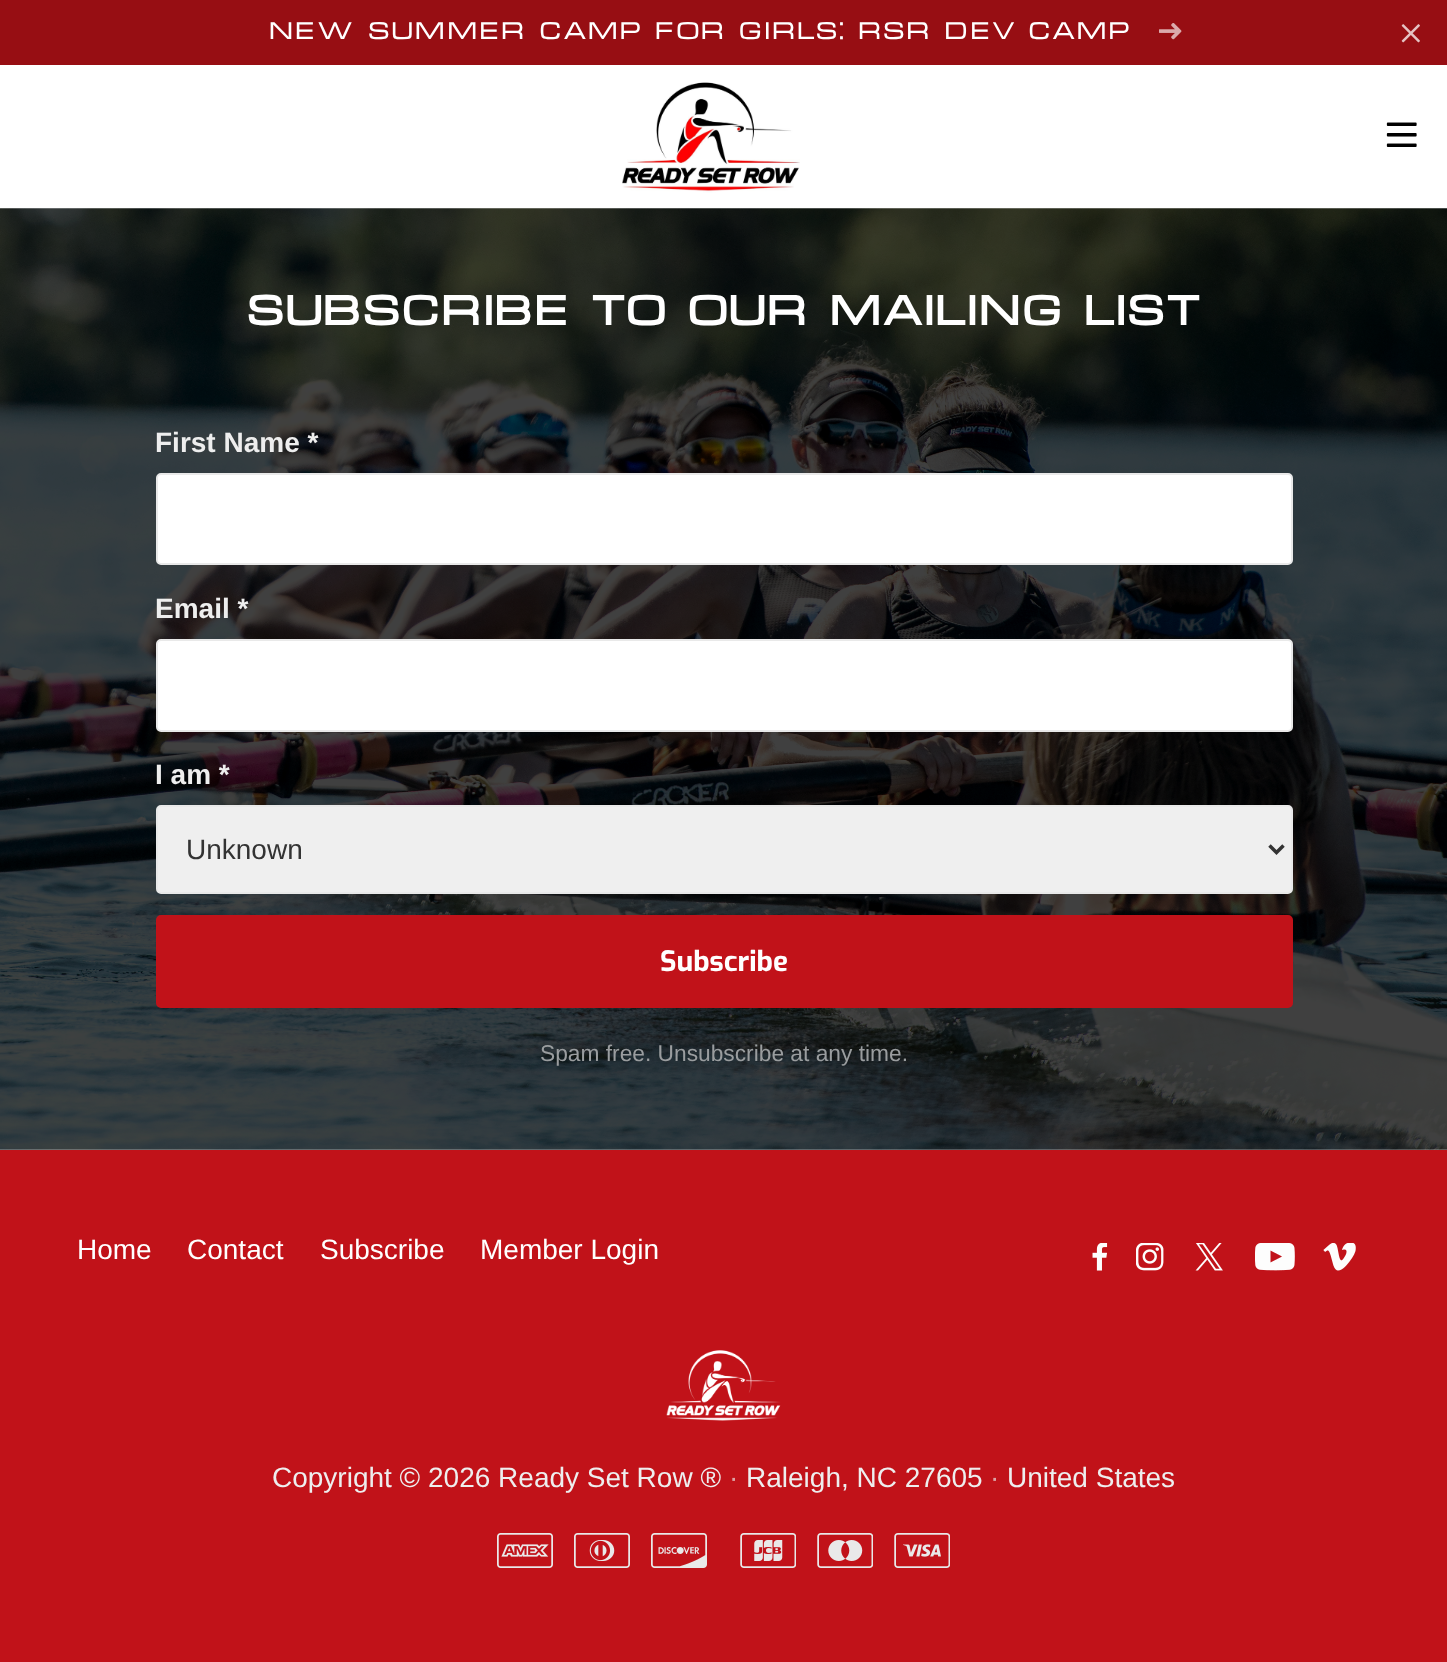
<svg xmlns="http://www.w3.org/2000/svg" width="1447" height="1662">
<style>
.a{font:24.5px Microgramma;letter-spacing:0.9px;fill:#fff}
.b{font:bold 42px Microgramma;fill:#fff}
.c{font:bold 28px Liberation Sans;fill:#eee}
.d{font:28px Liberation Sans;fill:#333}
.e{font:bold 28px Exo;fill:#fff}
.f{font:22.75px Liberation Sans;fill:#9a9d9f}
.g{font:28px Liberation Sans;fill:#fff}
.h{font:28px Liberation Sans;fill:#eee}
.i{font:28px Liberation Sans;fill:#dca2a4}
</style>
<rect width="100%" height="100%" fill="#fff"/>
<path fill="#970e13" d="M0 0h1447v65H0z"/>
<image href="1.png" x="1159" y="23" width="23" height="17"/>
<image href="2.png" x="1401" y="24" width="19" height="19"/>
<image href="3.png" x="622" y="82" width="178" height="111"/>
<image href="4.png" x="1386" y="122" width="31" height="25"/>
<image href="5.png" x="0" y="208" width="1447" height="942"/>
<rect fill="#fff" stroke="#e9e9e9" stroke-width="2" x="157" y="474" width="1135" height="90" rx="4"/>
<rect fill="#fff" stroke="#e9e9e9" stroke-width="2" x="157" y="640" width="1135" height="91" rx="4"/>
<rect fill="#efefef" stroke="#e9e9e9" stroke-width="2" x="157" y="806" width="1135" height="87" rx="4"/>
<path fill="none" stroke="#333" stroke-width="3.5" d="M1269.5 845.5l7 7l7-7"/>
<rect fill="#c11219" stroke="#c11219" stroke-width="4" x="158" y="917" width="1133" height="89" rx="3"/>
<path fill="#c11219" d="M0 1150h1447v512H0z"/>
<image href="6.png" x="1092" y="1243" width="16" height="28"/>
<image href="7.png" x="1136" y="1243" width="28" height="28"/>
<image href="8.png" x="1195" y="1243" width="28" height="28"/>
<image href="9.png" x="1255" y="1243" width="40" height="28"/>
<image href="10.png" x="1323" y="1243" width="33" height="28"/>
<image href="11.png" x="666" y="1350" width="115" height="71"/>
<image href="12.png" x="497" y="1533" width="56" height="35"/>
<image href="13.png" x="574" y="1533" width="56" height="35"/>
<image href="14.png" x="651" y="1533" width="56" height="35"/>
<image href="15.png" x="740" y="1533" width="56" height="35"/>
<image href="16.png" x="817" y="1533" width="56" height="35"/>
<image href="17.png" x="894" y="1533" width="56" height="35"/>
<text class="a" x="269" y="39">NEW SUMMER CAMP FOR GIRLS: RSR DEV CAMP</text>
<text class="b" x="247" y="325">SUBSCRIBE TO OUR MAILING LIST</text>
<text class="c" x="155" y="452">First Name *</text>
<text class="c" x="155" y="618">Email *</text>
<text class="c" x="155" y="784">I am *</text>
<text class="d" x="186" y="859">Unknown</text>
<text class="e" x="660" y="971">Subscribe</text>
<text class="f" x="540" y="1061">Spam free. Unsubscribe at any time.</text>
<text class="g" x="77" y="1259">Home</text>
<text class="g" x="187" y="1259">Contact</text>
<text class="g" x="320" y="1259">Subscribe</text>
<text class="g" x="480" y="1259">Member Login</text>
<text class="h" x="272" y="1487">Copyright © 2026 Ready Set Row ®</text>
<text class="i" x="729" y="1487">·</text>
<text class="h" x="746" y="1487">Raleigh, NC 27605</text>
<text class="i" x="990" y="1487">·</text>
<text class="h" x="1007" y="1487">United States</text>
</svg>
